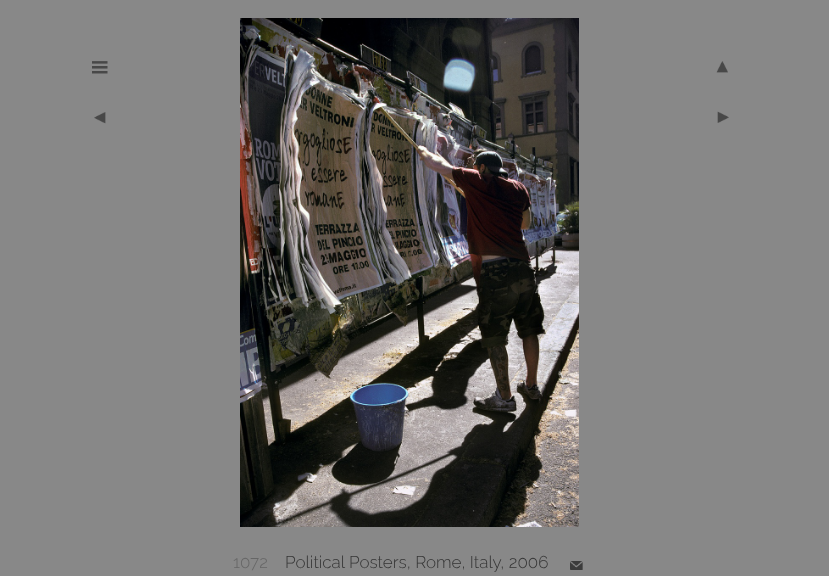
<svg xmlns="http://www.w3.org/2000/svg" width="829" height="576">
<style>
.a{font:100 17px Raleway;fill:#666}
.b{font:100 17px Raleway;fill:#353535}
</style>
<rect width="100%" height="100%" fill="#888"/>
<image href="1.png" x="92" y="61" width="16" height="13"/>
<image href="2.png" x="240" y="18" width="339" height="509"/>
<image href="3.png" x="716" y="61" width="12" height="12"/>
<image href="4.png" x="94" y="112" width="12" height="12"/>
<image href="5.png" x="717" y="111" width="12" height="12"/>
<image href="6.png" x="570" y="561" width="13" height="9"/>
<text class="a" x="233" y="568">1072</text>
<text class="b" x="285" y="568">Political Posters, Rome, Italy, 2006</text>
</svg>
